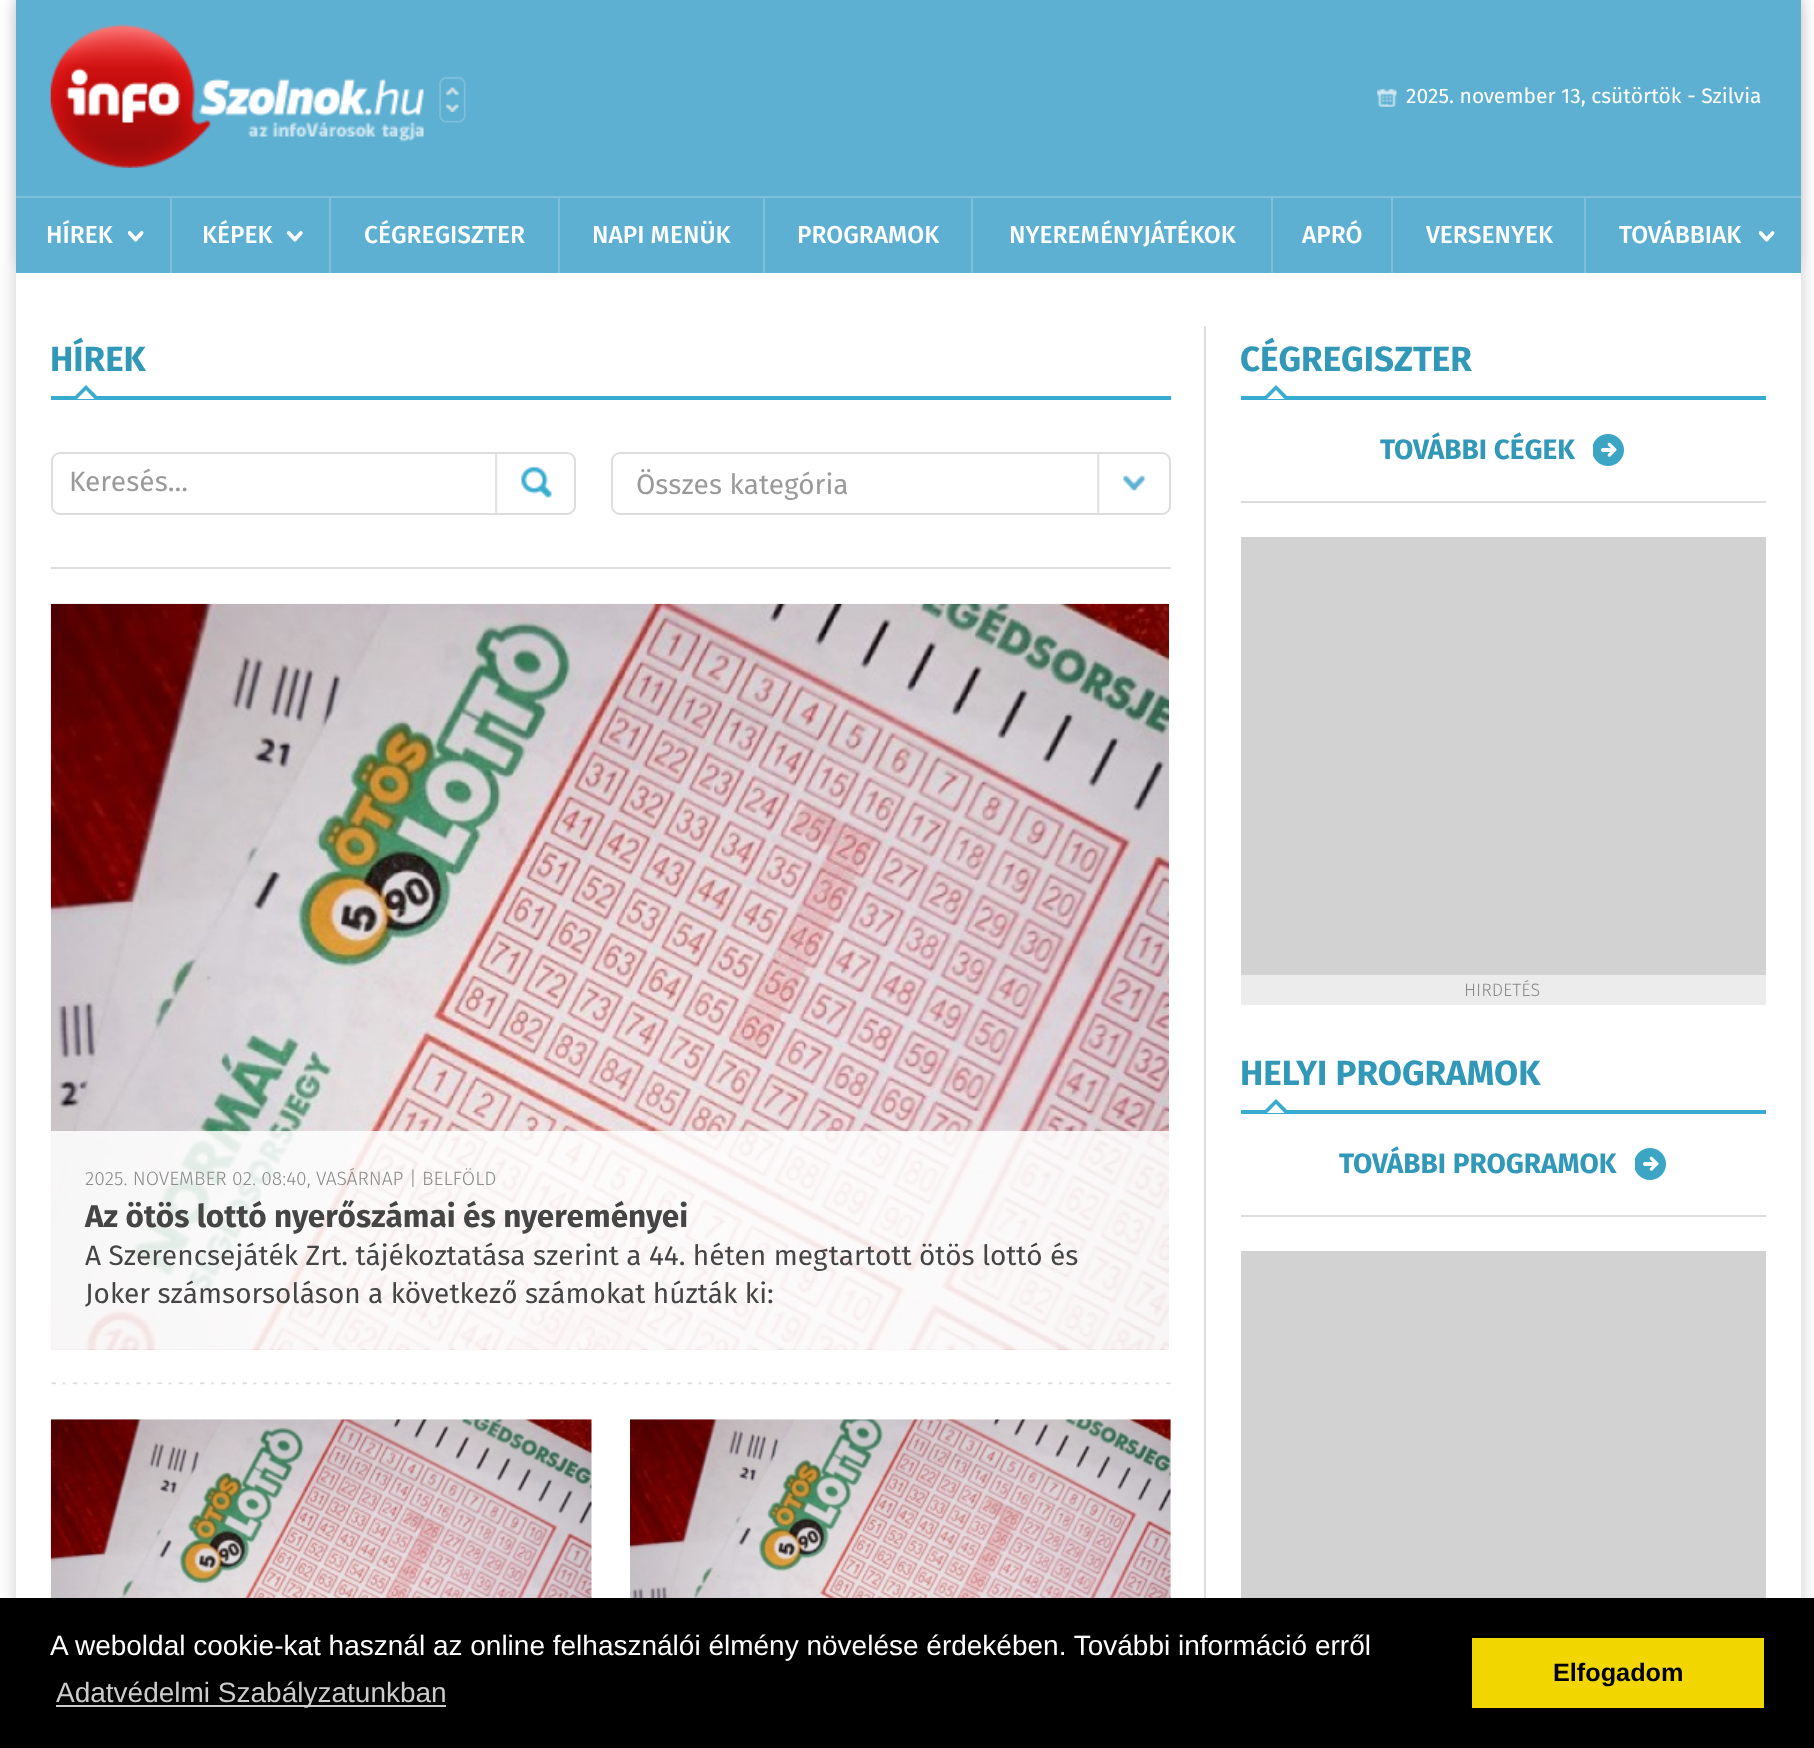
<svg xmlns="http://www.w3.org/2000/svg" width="1814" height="1748">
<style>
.a{font:21px Fira Sans;fill:#fff}
.b{font:500 24.5px Fira Sans;fill:#fff}
.c{font:bold 35px Fira Sans;fill:#3198b8}
.d{font:28px Fira Sans;fill:#9a9a9a}
.e{font:300 19.25px Fira Sans;fill:#8b8b8b}
.f{font:bold 31.5px Fira Sans;fill:#454545}
.g{font:28px Fira Sans;fill:#454545}
.h{font:bold 28px Fira Sans;fill:#3198b8}
.i{font:300 18px Fira Sans;fill:#8b8b8b}
.j{font:28px Liberation Sans;fill:#fff}
.k{font:28px Liberation Sans;fill:#ccc}
.l{font:bold 25.25px Liberation Sans;fill:#000}
</style>
<rect width="100%" height="100%" fill="#fff"/>
<path fill="#00000033" filter="blur(9px)" d="M16 0h1785v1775H16z"/>
<path fill="#00000017" filter="blur(6px)" d="M16 -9h1785v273H16z"/>
<path fill="#5eb0d2" d="M16 0h1785v273H16z"/>
<image href="1.png" x="50" y="24" width="374" height="144"/>
<image href="2.png" x="439" y="77" width="27" height="46"/>
<image href="3.png" x="1377" y="89" width="20" height="18"/>
<path fill="#7ec0db" d="M16 196h1785v2H16z"/>
<path fill="#7ec0db" d="M170 198h2v75H170z"/>
<image href="4.png" x="128" y="231" width="16" height="11"/>
<path fill="#7ec0db" d="M329 198h2v75H329z"/>
<image href="5.png" x="287" y="231" width="16" height="11"/>
<path fill="#7ec0db" d="M558 198h2v75H558z"/>
<path fill="#7ec0db" d="M763 198h2v75H763z"/>
<path fill="#7ec0db" d="M971 198h2v75H971z"/>
<path fill="#7ec0db" d="M1271 198h2v75H1271z"/>
<path fill="#7ec0db" d="M1391 198h2v75H1391z"/>
<path fill="#7ec0db" d="M1584 198h2v75H1584z"/>
<image href="4.png" x="1759" y="231" width="16" height="11"/>
<path fill="#fff" d="M16 273h1785v1325H16z"/>
<path fill="#ddd" d="M1204 326h2v1272H1204z"/>
<path fill="#38acd0" d="M51 396h1120v4H51z"/>
<path fill="#38acd0" d="M100 399h-28l14-14z"/>
<path fill="#fff" d="M94.5 399h-17.5l9-9z"/>
<path fill="#ddd" d="M51 567h1120v2H51z"/>
<rect fill="none" stroke="#ddd" stroke-width="2" x="52" y="453" width="523" height="61" rx="8"/>
<image href="6.png" x="495" y="454" width="57" height="59"/>
<image href="7.png" x="1097" y="454" width="48" height="59"/>
<rect fill="none" stroke="#ddd" stroke-width="2" x="612" y="453" width="558" height="61" rx="8"/>
<image href="8.png" x="50" y="1382" width="1121" height="3"/>
<image href="9.png" x="50" y="603" width="1119" height="747"/>
<path fill="#ffffffd9" d="M51 1131h1118v218H51z"/>
<image href="10.png" x="50" y="1419" width="542" height="179"/>
<image href="11.png" x="630" y="1419" width="541" height="179"/>
<path fill="#38acd0" d="M1241 396h525v4H1241z"/>
<path fill="#38acd0" d="M1290 399h-28l14-14z"/>
<path fill="#fff" d="M1284.5 399h-17.5l9-9z"/>
<path fill="#ddd" d="M1241 501h525v2H1241z"/>
<image href="12.png" x="1593" y="434" width="31" height="32"/>
<path fill="#d2d2d2" d="M1241 537h525v438H1241z"/>
<path fill="#ececec" d="M1241 975h525v30H1241z"/>
<path fill="#38acd0" d="M1241 1110h525v4H1241z"/>
<path fill="#38acd0" d="M1290 1113h-28l14-14z"/>
<path fill="#fff" d="M1284.5 1113h-17.5l9-9z"/>
<path fill="#ddd" d="M1241 1215h525v2H1241z"/>
<image href="12.png" x="1635" y="1148" width="31" height="32"/>
<path fill="#d2d2d2" d="M1241 1251h525v347H1241z"/>
<path fill="#000" d="M0 1598h1814v150H0z"/>
<path fill="#ccc" d="M56 1705h390v2H56z"/>
<path fill="#f1d600" d="M1472 1638h292v70H1472z"/>
<text class="a" x="1406" y="103">2025. november 13, csütörtök - Szilvia</text>
<text class="b" x="46" y="243">HÍREK</text>
<text class="b" x="202" y="243">KÉPEK</text>
<text class="b" x="364" y="243">CÉGREGISZTER</text>
<text class="b" x="592" y="243">NAPI MENÜK</text>
<text class="b" x="797" y="243">PROGRAMOK</text>
<text class="b" x="1009" y="243">NYEREMÉNYJÁTÉKOK</text>
<text class="b" x="1302" y="243">APRÓ</text>
<text class="b" x="1426" y="243">VERSENYEK</text>
<text class="b" x="1619" y="243">TOVÁBBIAK</text>
<text class="c" x="50" y="371">HÍREK</text>
<text class="d" x="69" y="491">Keresés...</text>
<text class="d" x="636" y="494">Összes kategória</text>
<text class="e" x="85" y="1185">2025. NOVEMBER 02. 08:40, VASÁRNAP | BELFÖLD</text>
<text class="f" x="85" y="1227">Az ötös lottó nyerőszámai és nyereményei</text>
<text class="g" x="85" y="1265">A Szerencsejáték Zrt. tájékoztatása szerint a 44. héten megtartott ötös lottó és</text>
<text class="g" x="85" y="1303">Joker számsorsoláson a következő számokat húzták ki:</text>
<text class="c" x="1240" y="371">CÉGREGISZTER</text>
<text class="h" x="1380" y="459">TOVÁBBI CÉGEK</text>
<text class="i" x="1464" y="996">HIRDETÉS</text>
<text class="c" x="1240" y="1085">HELYI PROGRAMOK</text>
<text class="h" x="1339" y="1173">TOVÁBBI PROGRAMOK</text>
<text class="j" x="50" y="1655">A weboldal cookie-kat használ az online felhasználói élmény növelése érdekében. További információ erről</text>
<text class="k" x="56" y="1702">Adatvédelmi Szabályzatunkban</text>
<text class="l" x="1553" y="1681">Elfogadom</text>
</svg>
